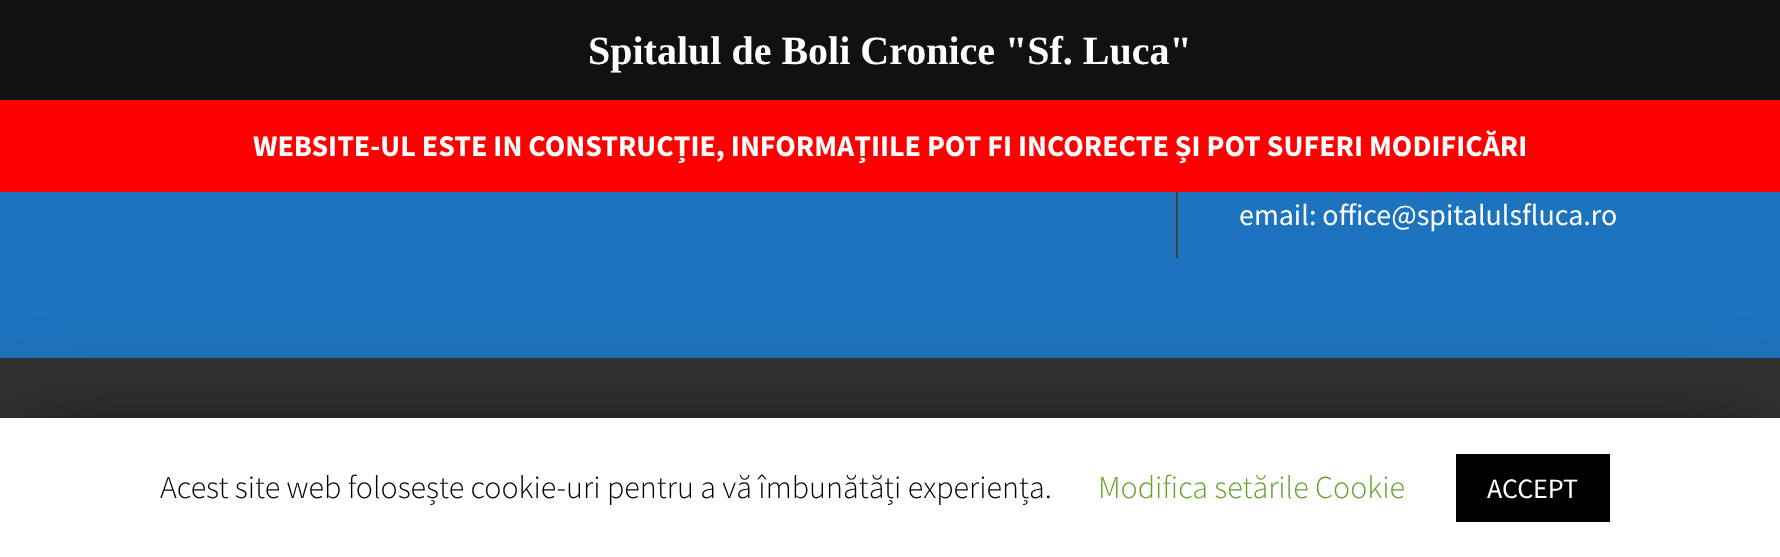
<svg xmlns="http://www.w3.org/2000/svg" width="1780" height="557">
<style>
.a{font:bold 40px Liberation Serif;fill:#fff}
.b{font:bold 30px Source Sans Pro;fill:#fff}
.c{font:30px Source Sans Pro;fill:#fff}
.d{font:300 32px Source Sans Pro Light;fill:#000}
.e{font:300 32px Source Sans Pro Light;fill:#62a329}
.f{font:28px Source Sans Pro;fill:#fff}
</style>
<rect width="100%" height="100%" fill="#1e73be"/>
<path fill="#111" d="M0 0h1780v100H0z"/>
<path fill="#f00" d="M0 100h1780v92H0z"/>
<path fill="#3f3f3f" d="M1176 192h2v66H1176z"/>
<path fill="#333" d="M0 358h1780v60H0z"/>
<path fill="#00000080" filter="blur(50px)" d="M0 428h1780v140H0z"/>
<path fill="#fff" d="M0 418h1780v139H0z"/>
<path fill="#000" d="M1456 454h154v68H1456z"/>
<text class="a" x="588" y="64">Spitalul de Boli Cronice "Sf. Luca"</text>
<text class="b" x="253" y="156">WEBSITE-UL ESTE IN CONSTRUCȚIE, INFORMAȚIILE POT FI INCORECTE ȘI POT SUFERI MODIFICĂRI</text>
<text class="c" x="1239" y="225">email: office@spitalulsfluca.ro</text>
<text class="d" x="160" y="498">Acest site web folosește cookie-uri pentru a vă îmbunătăți experiența.</text>
<text class="e" x="1098" y="498">Modifica setările Cookie</text>
<text class="f" x="1487" y="498">ACCEPT</text>
</svg>
